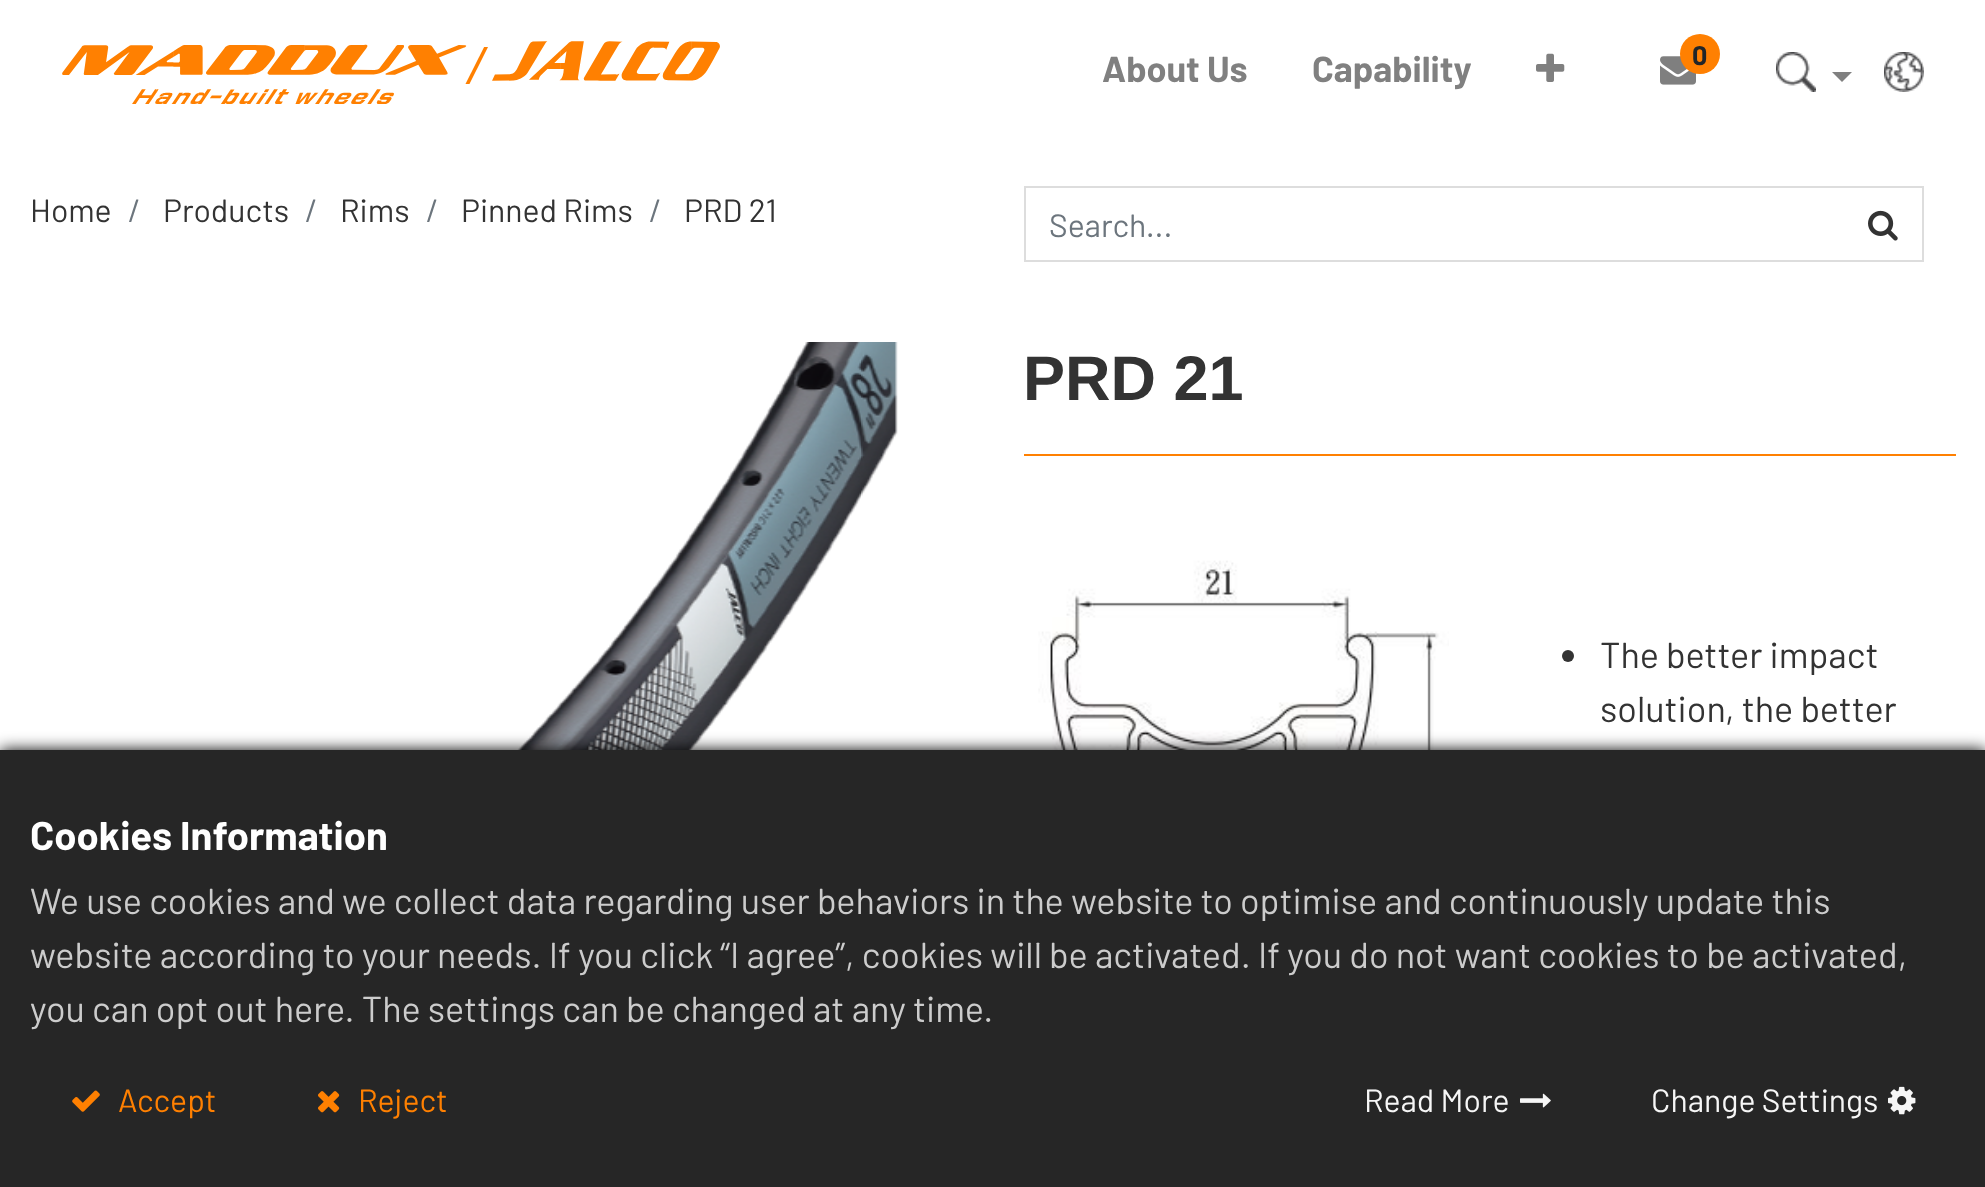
<svg xmlns="http://www.w3.org/2000/svg" width="1985" height="1187">
<style>
.a{font:bold 36px Barlow;fill:#808080}
.b{font:bold 27px Barlow;fill:#212529}
.c{font:32px Barlow;fill:#333}
.d{font:32px Barlow;fill:#6c757d}
.e{font:bold 63px Liberation Sans;fill:#333}
.f{font:36px Barlow;fill:#333}
.g{font:bold 40px Barlow;fill:#fff}
.h{font:36px Barlow;fill:#ccc}
.i{font:32px Barlow;fill:#ff8001}
.j{font:32px Barlow;fill:#f6f6f6}
</style>
<rect width="100%" height="100%" fill="#fff"/>
<image href="1.png" x="62" y="41" width="658" height="63"/>
<image href="2.png" x="1536" y="53" width="29" height="29"/>
<image href="3.png" x="1660" y="56" width="36" height="29"/>
<circle fill="#ff8001" cx="1700" cy="54" r="20"/>
<image href="4.png" x="1776" y="52" width="40" height="40"/>
<path fill="#808080" d="M1832 72h20l-10 10z"/>
<image href="5.png" x="1884" y="52" width="40" height="40"/>
<path fill="none" stroke="#ddd" stroke-width="2" d="M1025 187h898v74H1025z"/>
<image href="6.png" x="1868" y="210" width="30" height="31"/>
<image href="7.png" x="517" y="342" width="381" height="408"/>
<path fill="#ff8001" d="M1024 454h932v2H1024z"/>
<image href="8.png" x="1038" y="560" width="411" height="190"/>
<circle fill="#333" cx="1568" cy="656" r="6"/>
<path fill="#000" filter="blur(8px)" d="M0 750h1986v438H0z"/>
<path fill="#262626" d="M0 750h1985v437H0z"/>
<image href="9.png" x="72" y="1090" width="28" height="22"/>
<image href="10.png" x="318" y="1091" width="22" height="22"/>
<image href="11.png" x="1520" y="1093" width="31" height="15"/>
<image href="12.png" x="1888" y="1086" width="28" height="29"/>
<text class="a" x="1102" y="82">About Us</text>
<text class="a" x="1312" y="82">Capability</text>
<text class="b" x="1692" y="65">0</text>
<text class="c" x="30" y="222">Home</text>
<text class="d" x="128" y="222">/</text>
<text class="c" x="163" y="222">Products</text>
<text class="d" x="305" y="222">/</text>
<text class="c" x="340" y="222">Rims</text>
<text class="d" x="426" y="222">/</text>
<text class="c" x="461" y="222">Pinned Rims</text>
<text class="d" x="649" y="222">/</text>
<text class="c" x="684" y="222">PRD 21</text>
<text class="d" x="1049" y="237">Search...</text>
<text class="e" x="1023" y="400">PRD 21</text>
<text class="f" x="1600" y="668">The better impact</text>
<text class="f" x="1600" y="722">solution, the better</text>
<text class="g" x="30" y="850">Cookies Information</text>
<text class="h" x="30" y="914">We use cookies and we collect data regarding user behaviors in the website to optimise and continuously update this</text>
<text class="h" x="30" y="968">website according to your needs. If you click “I agree”, cookies will be activated. If you do not want cookies to be activated,</text>
<text class="h" x="30" y="1022">you can opt out here. The settings can be changed at any time.</text>
<text class="i" x="118" y="1112">Accept</text>
<text class="i" x="358" y="1112">Reject</text>
<text class="j" x="1364" y="1112">Read More</text>
<text class="j" x="1651" y="1112">Change Settings</text>
</svg>
